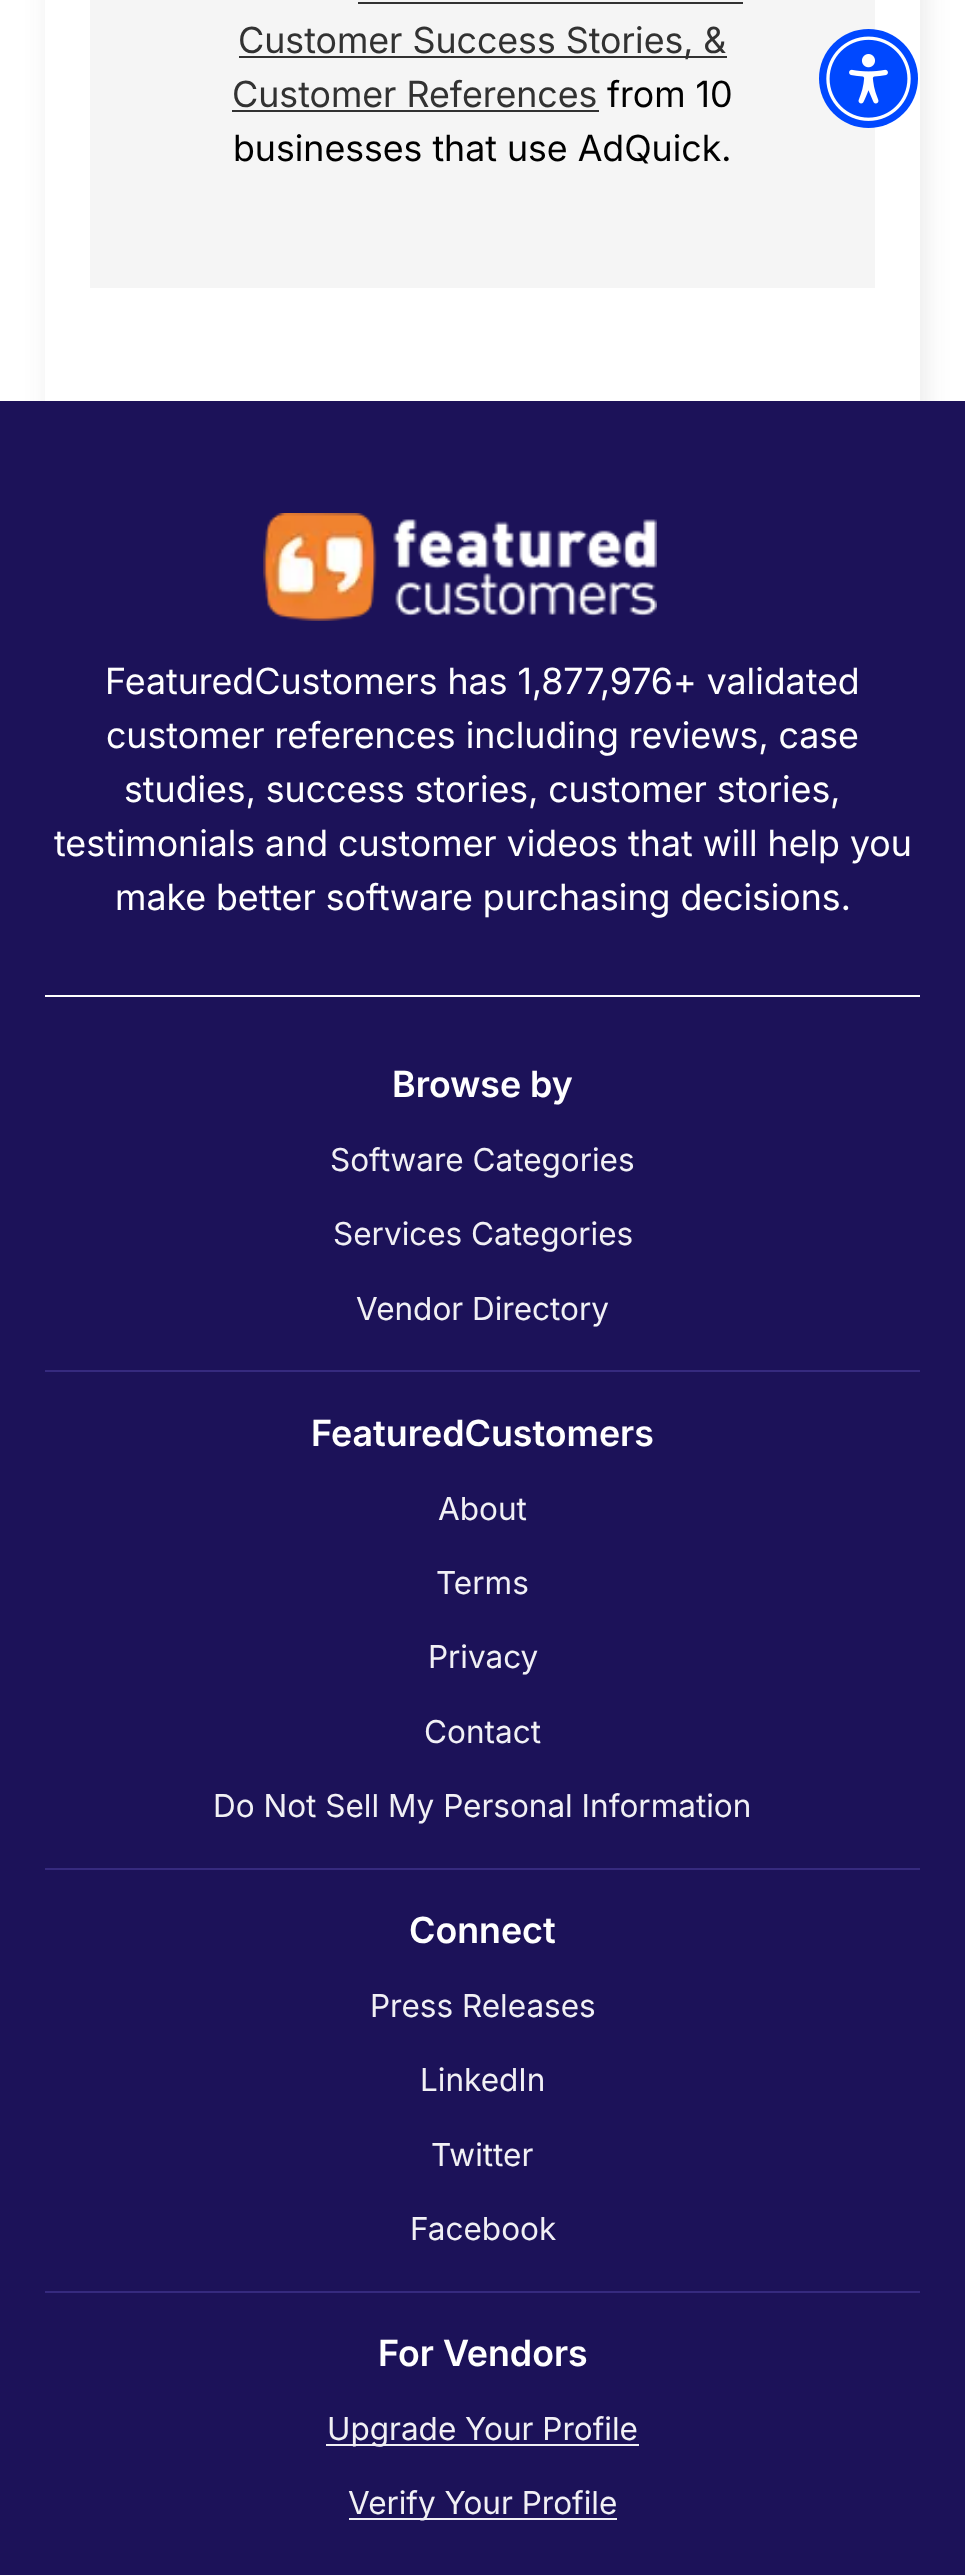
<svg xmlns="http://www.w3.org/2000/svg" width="965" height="2575">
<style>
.a{font:36px Inter;fill:#323232}
.b{font:36px Inter;fill:#000}
.c{font:36px Inter;fill:#fff}
.d{font:600 36px Inter;fill:#fff}
.e{font:31.5px 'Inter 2';fill:#f1f0f5}
</style>
<rect width="100%" height="100%" fill="#fff"/>
<path fill="#3232321a" filter="blur(13.5px)" d="M50 -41h875v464H50z"/>
<path fill="#fff" d="M45 0h875v401H45z"/>
<path fill="#f5f5f5" d="M90 0h785v288H90z"/>
<path fill="#323232" d="M358 2h385v2H358z"/>
<path fill="#323232" d="M239 56h488v2H239z"/>
<path fill="#323232" d="M232 110h367v2H232z"/>
<path fill="#1c1259" d="M0 401h965v2174H0z"/>
<path fill="#fff" d="M45 995h875v2H45z"/>
<image href="1.png" x="263" y="513" width="394" height="108"/>
<path fill="#362a7f" d="M45 1370h875v2H45z"/>
<path fill="#362a7f" d="M45 1868h875v2H45z"/>
<path fill="#362a7f" d="M45 2291h875v2H45z"/>
<path fill="#f1f0f5" d="M326 2444h313v2H326z"/>
<path fill="#f1f0f5" d="M349 2518h268v2H349z"/>
<circle fill="#0048ff" cx="868.5" cy="78.5" r="49.5"/>
<image href="2.png" x="826" y="36" width="85" height="85"/>
<text class="a" x="238" y="53">Customer Success Stories, &amp;</text>
<text class="a" x="232" y="107">Customer References</text>
<text class="b" x="607" y="107">from 10</text>
<text class="b" x="233" y="161">businesses that use AdQuick.</text>
<text class="c" x="105" y="694">FeaturedCustomers has 1,877,976+ validated</text>
<text class="c" x="106" y="748">customer references including reviews, case</text>
<text class="c" x="124" y="802">studies, success stories, customer stories,</text>
<text class="c" x="54" y="856">testimonials and customer videos that will help you</text>
<text class="c" x="115" y="910">make better software purchasing decisions.</text>
<text class="d" x="392" y="1097">Browse by</text>
<text class="e" x="330" y="1171">Software Categories</text>
<text class="e" x="333" y="1245">Services Categories</text>
<text class="e" x="356" y="1320">Vendor Directory</text>
<text class="d" x="311" y="1446">FeaturedCustomers</text>
<text class="e" x="438" y="1520">About</text>
<text class="e" x="436" y="1594">Terms</text>
<text class="e" x="428" y="1668">Privacy</text>
<text class="e" x="424" y="1743">Contact</text>
<text class="e" x="213" y="1817">Do Not Sell My Personal Information</text>
<text class="d" x="409" y="1943">Connect</text>
<text class="e" x="370" y="2017">Press Releases</text>
<text class="e" x="420" y="2091">LinkedIn</text>
<text class="e" x="431" y="2166">Twitter</text>
<text class="e" x="410" y="2240">Facebook</text>
<text class="d" x="378" y="2366">For Vendors</text>
<text class="e" x="327" y="2440">Upgrade Your Profile</text>
<text class="e" x="348" y="2514">Verify Your Profile</text>
</svg>
